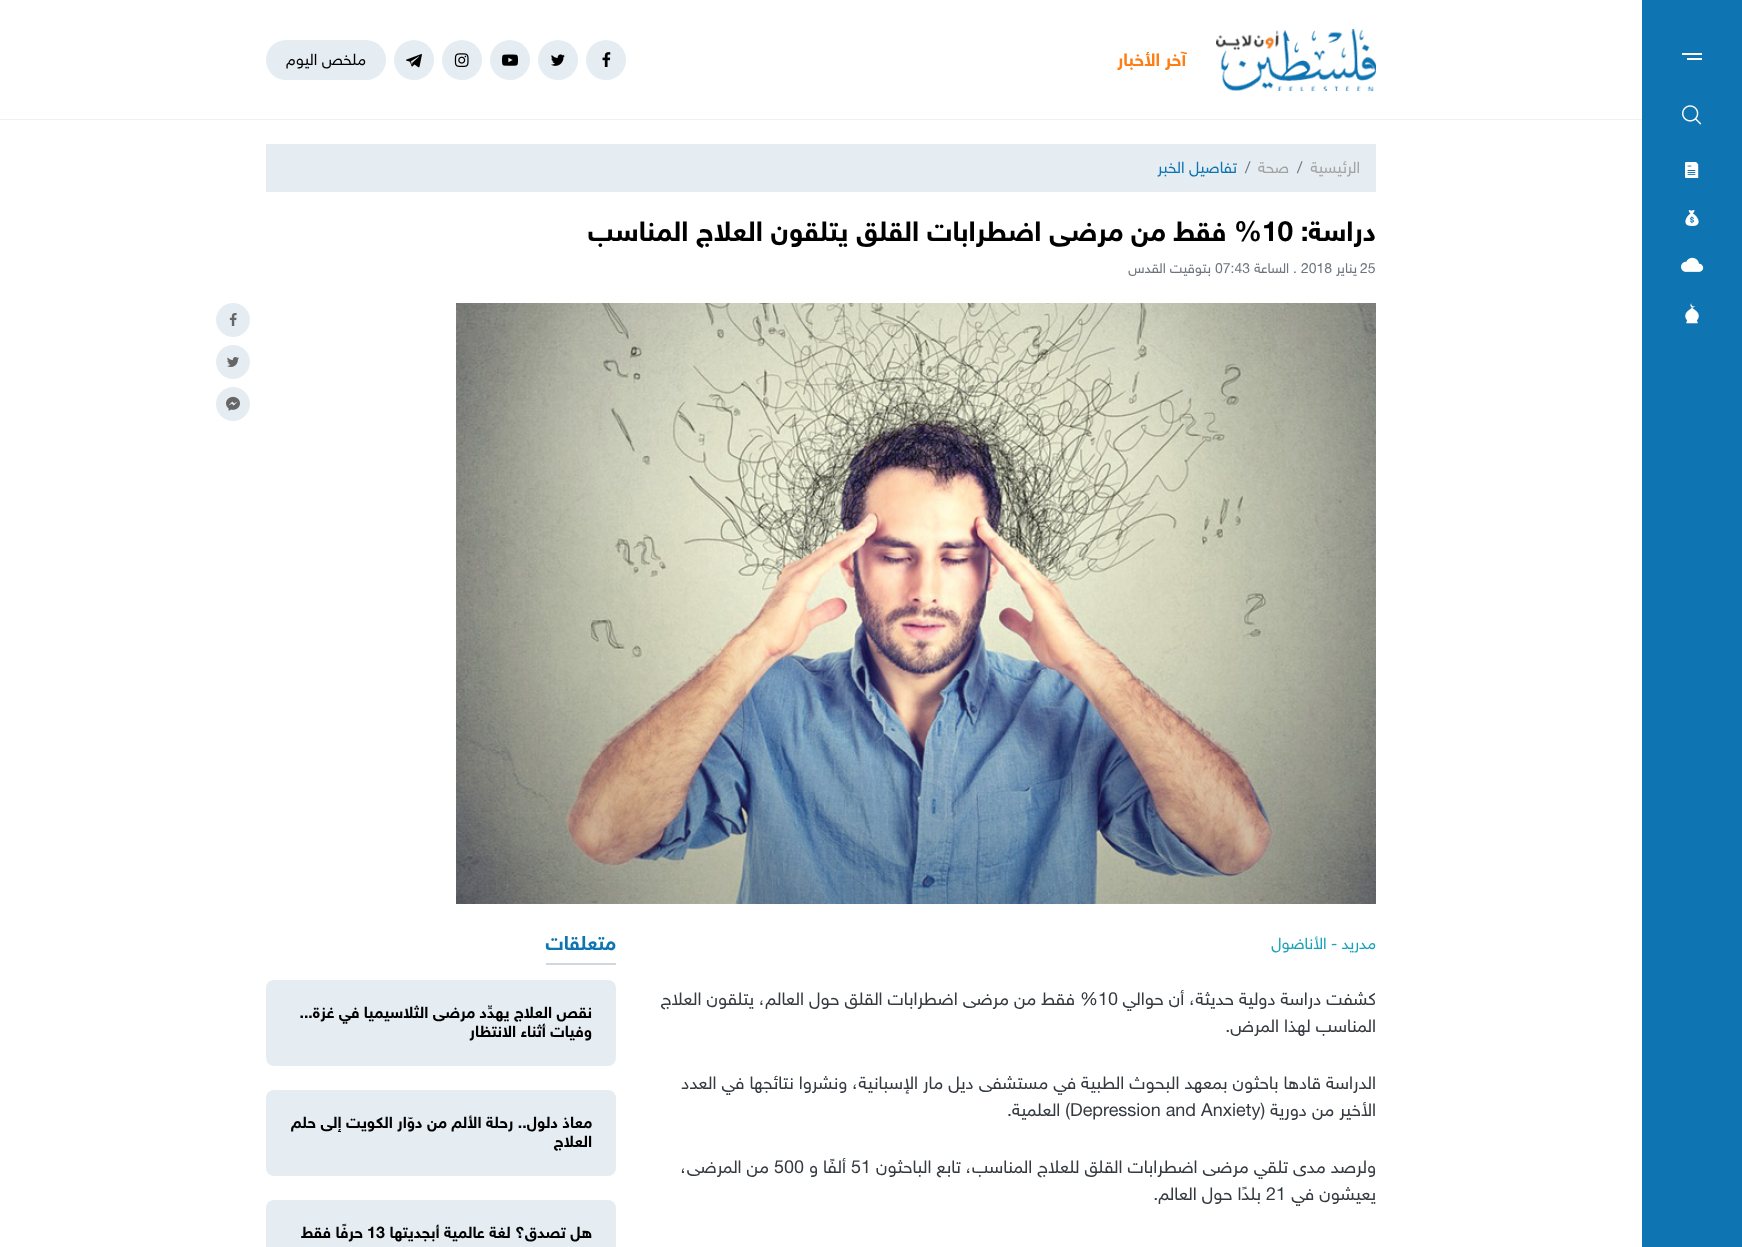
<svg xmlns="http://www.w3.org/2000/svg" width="1742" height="1247">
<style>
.a{font:bold 18px 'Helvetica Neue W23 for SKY';direction:rtl;fill:#fd7e14}
.b{font:16px 'Helvetica Neue W23 for SKY';direction:rtl;fill:#000}
.c{font:16px 'Helvetica Neue W23 for SKY';direction:rtl;fill:#a3a3a3}
.d{font:16px 'Helvetica Neue W23 for SKY';fill:#6c757d}
.e{font:16px 'Helvetica Neue W23 for SKY';direction:rtl;fill:#0e74b2}
.f{font:bold 28px 'Helvetica Neue W23 for SKY';direction:rtl;fill:#000}
.g{font:bold 28px 'Helvetica Neue W23 for SKY';fill:#000}
.h{font:14px 'Helvetica Neue W23 for SKY';fill:#6c757d}
.i{font:14px 'Helvetica Neue W23 for SKY';direction:rtl;fill:#6c757d}
.j{font:16px 'Helvetica Neue W23 for SKY';direction:rtl;fill:#17a2b8}
.k{font:18px 'Helvetica Neue W23 for SKY';direction:rtl;fill:#343a40}
.l{font:18px 'Helvetica Neue W23 for SKY';fill:#343a40}
.m{font:bold 20px 'Helvetica Neue W23 for SKY';direction:rtl;fill:#0e74b2}
.n{font:bold 16px 'Helvetica Neue W23 for SKY';direction:rtl;fill:#000}
.o{font:bold 16px 'Helvetica Neue W23 for SKY';fill:#000}
</style>
<rect width="100%" height="100%" fill="#fff"/>
<path fill="#0e74b2" d="M1642 0h100v1247H1642z"/>
<path fill="#fff" d="M1682 53h20v2H1682z"/>
<path fill="#fff" d="M1687 58h15v2H1687z"/>
<image href="1.png" x="1682" y="105" width="20" height="20"/>
<image href="2.png" x="1685" y="162" width="14" height="16"/>
<image href="3.png" x="1685" y="210" width="14" height="16"/>
<image href="4.png" x="1681" y="257" width="23" height="15"/>
<image href="5.png" x="1685" y="303" width="14" height="21"/>
<path fill="#eef1f4" d="M0 119h1642v1H0z"/>
<image href="6.png" x="1216" y="29" width="160" height="62"/>
<circle fill="#e6edf2" cx="606" cy="60" r="20"/>
<image href="7.png" x="602" y="52" width="9" height="15"/>
<circle fill="#e6edf2" cx="558" cy="60" r="20"/>
<image href="8.png" x="551" y="54" width="14" height="12"/>
<circle fill="#e6edf2" cx="510" cy="60" r="20"/>
<image href="9.png" x="502" y="54" width="16" height="12"/>
<circle fill="#e6edf2" cx="462" cy="60" r="20"/>
<image href="10.png" x="454" y="53" width="15" height="14"/>
<circle fill="#e6edf2" cx="414" cy="60" r="20"/>
<image href="11.png" x="406" y="54" width="16" height="14"/>
<rect fill="#e6edf2" x="266" y="40" width="120" height="40" rx="20"/>
<path fill="#e6edf2" d="M266 144h1110v48H266z"/>
<image href="12.png" x="456" y="303" width="920" height="601"/>
<circle fill="#e6edf2" cx="233" cy="320" r="17"/>
<image href="13.png" x="229" y="313" width="8" height="13"/>
<circle fill="#e6edf2" cx="233" cy="362" r="17"/>
<image href="14.png" x="227" y="357" width="12" height="10"/>
<circle fill="#e6edf2" cx="233" cy="404" r="17"/>
<image href="15.png" x="226" y="396" width="14" height="15"/>
<path fill="#d0d8dd" d="M546 963h70v2H546z"/>
<rect fill="#e6edf2" x="266" y="980" width="350" height="86" rx="8"/>
<rect fill="#e6edf2" x="266" y="1090" width="350" height="86" rx="8"/>
<rect fill="#e6edf2" x="266" y="1200" width="350" height="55" rx="8"/>
<text class="a" x="1186" y="66">آخر الأخبار</text>
<text class="b" x="366" y="65">ملخص اليوم</text>
<text class="c" x="1360" y="173">الرئيسية</text>
<text class="d" x="1297" y="173">/</text>
<text class="c" x="1289" y="173">صحة</text>
<text class="d" x="1245" y="173">/</text>
<text class="e" x="1237" y="173">تفاصيل الخبر</text>
<text class="f" x="1376" y="241">دراسة:</text>
<text class="g" x="1262" y="241">10</text>
<text class="f" x="1262" y="241">% فقط من مرضى اضطرابات القلق يتلقون العلاج المناسب</text>
<text class="h" x="1360" y="273">25</text>
<text class="i" x="1357" y="273">يناير</text>
<text class="h" x="1301" y="273">2018</text>
<text class="i" x="1297" y="273">. الساعة</text>
<text class="h" x="1215" y="273">07:43</text>
<text class="i" x="1211" y="273">بتوقيت القدس</text>
<text class="j" x="1376" y="949">مدريد - الأناضول</text>
<text class="k" x="1376" y="1005">كشفت دراسة دولية حديثة، أن حوالي</text>
<text class="l" x="1098" y="1005">10</text>
<text class="k" x="1098" y="1005">% فقط من مرضى اضطرابات القلق حول العالم، يتلقون العلاج</text>
<text class="k" x="1376" y="1032">المناسب لهذا المرض.</text>
<text class="k" x="1376" y="1089">الدراسة قادها باحثون بمعهد البحوث الطبية في مستشفى ديل مار الإسبانية، ونشروا نتائجها في العدد</text>
<text class="l" x="1070" y="1116">Depression and Anxiety</text>
<text class="k" x="1376" y="1116">الأخير من دورية (</text>
<text class="k" x="1070" y="1116">) العلمية.</text>
<text class="k" x="1376" y="1173">ولرصد مدى تلقي مرضى اضطرابات القلق للعلاج المناسب، تابع الباحثون</text>
<text class="l" x="851" y="1173">51</text>
<text class="k" x="846" y="1173">ألفًا و</text>
<text class="l" x="774" y="1173">500</text>
<text class="k" x="769" y="1173">من المرضى،</text>
<text class="k" x="1376" y="1200">يعيشون في</text>
<text class="l" x="1266" y="1200">21</text>
<text class="k" x="1261" y="1200">بلدًا حول العالم.</text>
<text class="m" x="616" y="950">متعلقات</text>
<text class="n" x="592" y="1018">نقص العلاج يهدِّد مرضى الثلاسيميا في غزة...</text>
<text class="n" x="592" y="1037">وفيات أثناء الانتظار</text>
<text class="n" x="592" y="1128">معاذ دلول.. رحلة الألم من دوّار الكويت إلى حلم</text>
<text class="n" x="592" y="1147">العلاج</text>
<text class="n" x="592" y="1238">هل تصدق؟ لغة عالمية أبجديتها</text>
<text class="o" x="367" y="1238">13</text>
<text class="n" x="363" y="1238">حرفًا فقط</text>
</svg>
